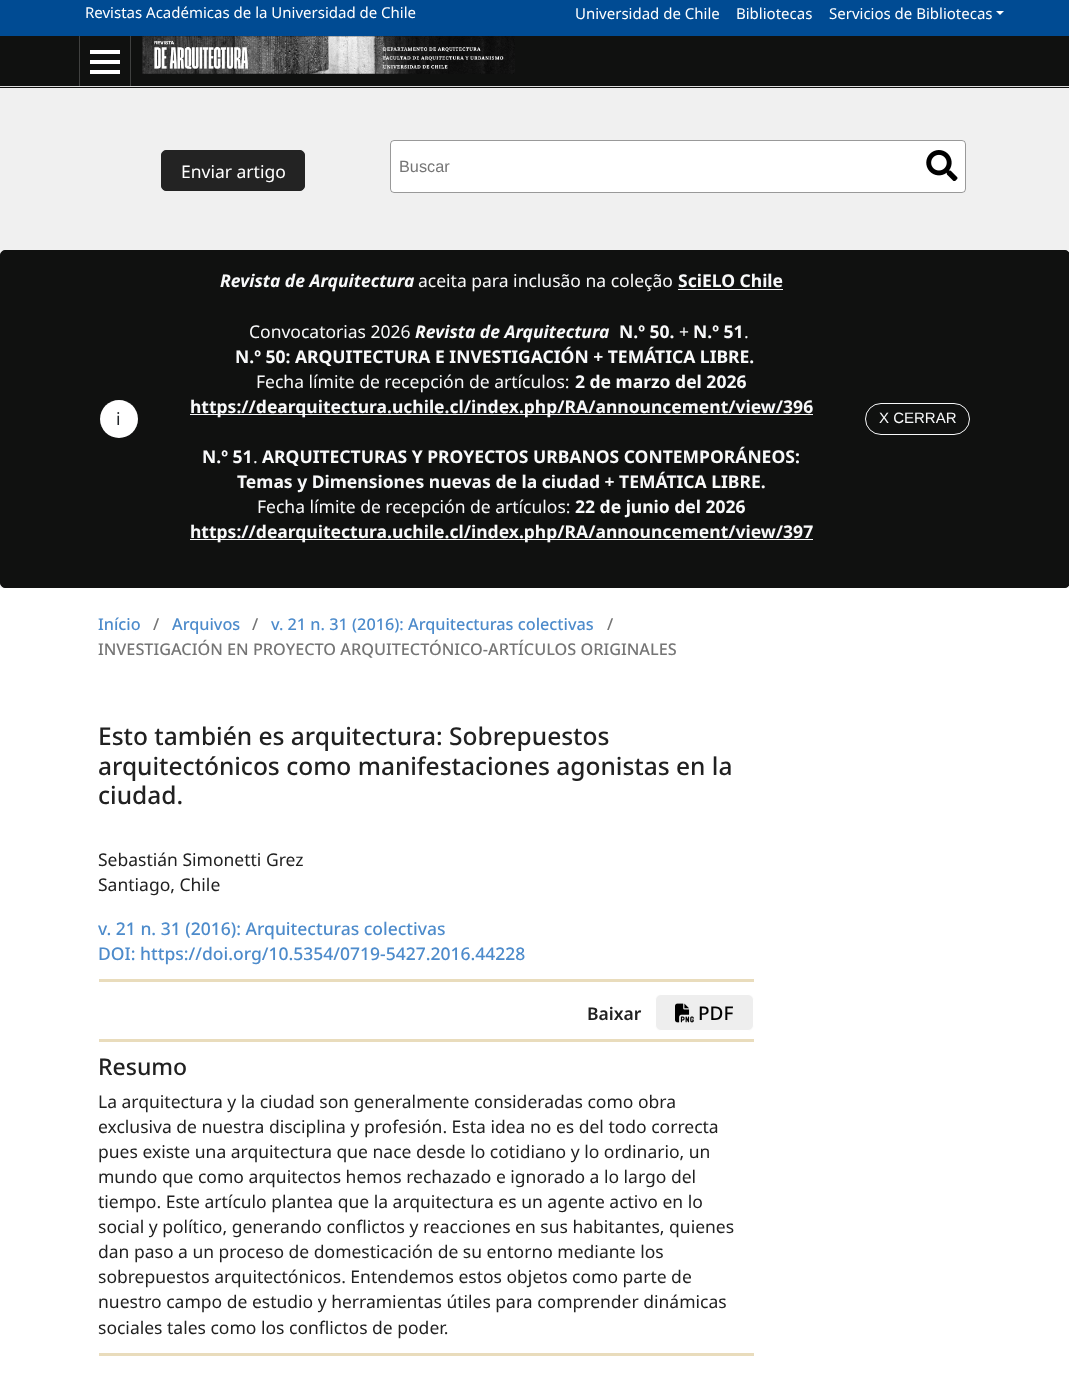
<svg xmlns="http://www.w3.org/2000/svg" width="1069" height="1376">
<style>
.a{font:15px Noto Sans;fill:#fff}
.b{font:17.5px Noto Sans;fill:#fff}
.c{font:16.25px Liberation Sans;fill:#757575}
.d{font:17.5px Noto Sans;fill:#212529}
.e{font:italic bold 17.5px Noto Sans;fill:#f8f9fa}
.f{font:17.5px Noto Sans;fill:#f8f9fa}
.g{font:bold 17.5px Noto Sans;fill:#f8f9fa}
.h{font:15px Liberation Sans;fill:#f8f9fa}
.i{font:500 16.25px Noto Sans;fill:#4d8bcb}
.j{font:500 16.25px Noto Sans;fill:#757575}
.k{font:500 24.5px Noto Sans;fill:#212121}
.l{font:17.5px Noto Sans;fill:#212121}
.m{font:500 17.5px Noto Sans;fill:#4d8bcb}
.n{font:600 17.5px Noto Sans;fill:#212121}
.o{font:500 19px Noto Sans;fill:#000}
.p{font:500 23px Noto Sans;fill:#212121}
</style>
<rect width="100%" height="100%" fill="#fff"/>
<path fill="#101110" d="M0 36h1069v52H0z"/>
<path fill="#ddd" d="M0 86h1069v1H0z"/>
<path fill="#004b93" d="M0 0h1069v36H0z"/>
<path fill="#fff" d="M996 11h8l-4 4z"/>
<path fill="#404140" d="M79 36v50h1v-50h49zm2 0h49v50h1v-50z"/>
<path fill="#fff" d="M90 70h30v4H90z"/>
<path fill="#fff" d="M90 50h30v4H90z"/>
<path fill="#fff" d="M90 60h30v4H90z"/>
<image href="1.png" x="142" y="36" width="373" height="38"/>
<path fill="#f0f0f0" d="M0 88h1069v500H0z"/>
<rect fill="#232323" stroke="#232323" x="161.5" y="150.5" width="143" height="40" rx="4.5"/>
<rect fill="#fff" x="390" y="140" width="576" height="53" rx="4"/>
<rect fill="none" stroke="#00000066" x="390.5" y="140.5" width="575" height="52" rx="3.5"/>
<image href="2.png" x="926" y="150" width="32" height="31"/>
<rect fill="#101110" stroke="#101110" x="0.5" y="250.5" width="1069" height="337" rx="4.5"/>
<circle fill="#fff" cx="119" cy="419" r="19"/>
<path fill="#f8f9fa" d="M678 289h105v1H678z"/>
<path fill="#f8f9fa" d="M190 414h623v1H190z"/>
<path fill="#f8f9fa" d="M190 539h623v1H190z"/>
<rect fill="none" stroke="#f8f9fa" x="865.5" y="403.5" width="104" height="31" rx="15.5"/>
<path fill="#e9dcbc" d="M99 979h655v3H99z"/>
<rect fill="#eee" stroke="#fff" x="655.5" y="994.5" width="98" height="36" rx="5.5"/>
<image href="3.png" x="675" y="1003" width="19" height="20"/>
<path fill="#e9dcbc" d="M99 1039h655v3H99z"/>
<path fill="#e9dcbc" d="M99 1353h655v3H99z"/>
<text class="a" x="85" y="18">Revistas Académicas de la Universidad de Chile</text>
<text class="a" x="575" y="19">Universidad de Chile</text>
<text class="a" x="736" y="19">Bibliotecas</text>
<text class="a" x="829" y="19">Servicios de Bibliotecas</text>
<text class="b" x="181" y="178">Enviar artigo</text>
<text class="c" x="399" y="172">Buscar</text>
<text class="d" x="116" y="425">i</text>
<text class="e" x="220" y="287">Revista de Arquitectura</text>
<text class="f" x="418" y="287">aceita para inclusão na coleção</text>
<text class="g" x="678" y="287">SciELO Chile</text>
<text class="f" x="249" y="338">Convocatorias 2026</text>
<text class="e" x="415" y="338">Revista de Arquitectura</text>
<text class="g" x="619" y="338">N.º 50.</text>
<text class="f" x="679" y="338">+</text>
<text class="g" x="693" y="338">N.º 51</text>
<text class="f" x="744" y="338">.</text>
<text class="g" x="235" y="363">N.º 50: ARQUITECTURA E INVESTIGACIÓN + TEMÁTICA LIBRE.</text>
<text class="f" x="256" y="388">Fecha límite de recepción de artículos:</text>
<text class="g" x="575" y="388">2 de marzo del 2026</text>
<text class="g" x="190" y="413">https://dearquitectura.uchile.cl/index.php/RA/announcement/view/396</text>
<text class="g" x="202" y="463">N.º 51</text>
<text class="f" x="253" y="463">.</text>
<text class="g" x="262" y="463">ARQUITECTURAS Y PROYECTOS URBANOS CONTEMPORÁNEOS:</text>
<text class="g" x="237" y="488">Temas y Dimensiones nuevas de la ciudad + TEMÁTICA LIBRE.</text>
<text class="f" x="257" y="513">Fecha límite de recepción de artículos:</text>
<text class="g" x="575" y="513">22 de junio del 2026</text>
<text class="g" x="190" y="538">https://dearquitectura.uchile.cl/index.php/RA/announcement/view/397</text>
<text class="h" x="879" y="423">X CERRAR</text>
<text class="i" x="98" y="630">Início</text>
<text class="j" x="153" y="630">/</text>
<text class="i" x="172" y="630">Arquivos</text>
<text class="j" x="252" y="630">/</text>
<text class="i" x="271" y="630">v. 21 n. 31 (2016): Arquitecturas colectivas</text>
<text class="j" x="607" y="630">/</text>
<text class="j" x="98" y="655">INVESTIGACIÓN EN PROYECTO ARQUITECTÓNICO-ARTÍCULOS ORIGINALES</text>
<text class="k" x="98" y="745">Esto también es arquitectura: Sobrepuestos</text>
<text class="k" x="98" y="775">arquitectónicos como manifestaciones agonistas en la</text>
<text class="k" x="98" y="804">ciudad.</text>
<text class="l" x="98" y="866">Sebastián Simonetti Grez</text>
<text class="l" x="98" y="891">Santiago, Chile</text>
<text class="m" x="98" y="935">v. 21 n. 31 (2016): Arquitecturas colectivas</text>
<text class="m" x="98" y="960">DOI: https://doi.org/10.5354/0719-5427.2016.44228</text>
<text class="n" x="587" y="1020">Baixar</text>
<text class="o" x="698" y="1020">PDF</text>
<text class="p" x="98" y="1075">Resumo</text>
<text class="l" x="98" y="1108">La arquitectura y la ciudad son generalmente consideradas como obra</text>
<text class="l" x="98" y="1133">exclusiva de nuestra disciplina y profesión. Esta idea no es del todo correcta</text>
<text class="l" x="98" y="1158">pues existe una arquitectura que nace desde lo cotidiano y lo ordinario, un</text>
<text class="l" x="98" y="1183">mundo que como arquitectos hemos rechazado e ignorado a lo largo del</text>
<text class="l" x="98" y="1208">tiempo. Este artículo plantea que la arquitectura es un agente activo en lo</text>
<text class="l" x="98" y="1233">social y político, generando conflictos y reacciones en sus habitantes, quienes</text>
<text class="l" x="98" y="1258">dan paso a un proceso de domesticación de su entorno mediante los</text>
<text class="l" x="98" y="1283">sobrepuestos arquitectónicos. Entendemos estos objetos como parte de</text>
<text class="l" x="98" y="1308">nuestro campo de estudio y herramientas útiles para comprender dinámicas</text>
<text class="l" x="98" y="1334">sociales tales como los conflictos de poder.</text>
</svg>
